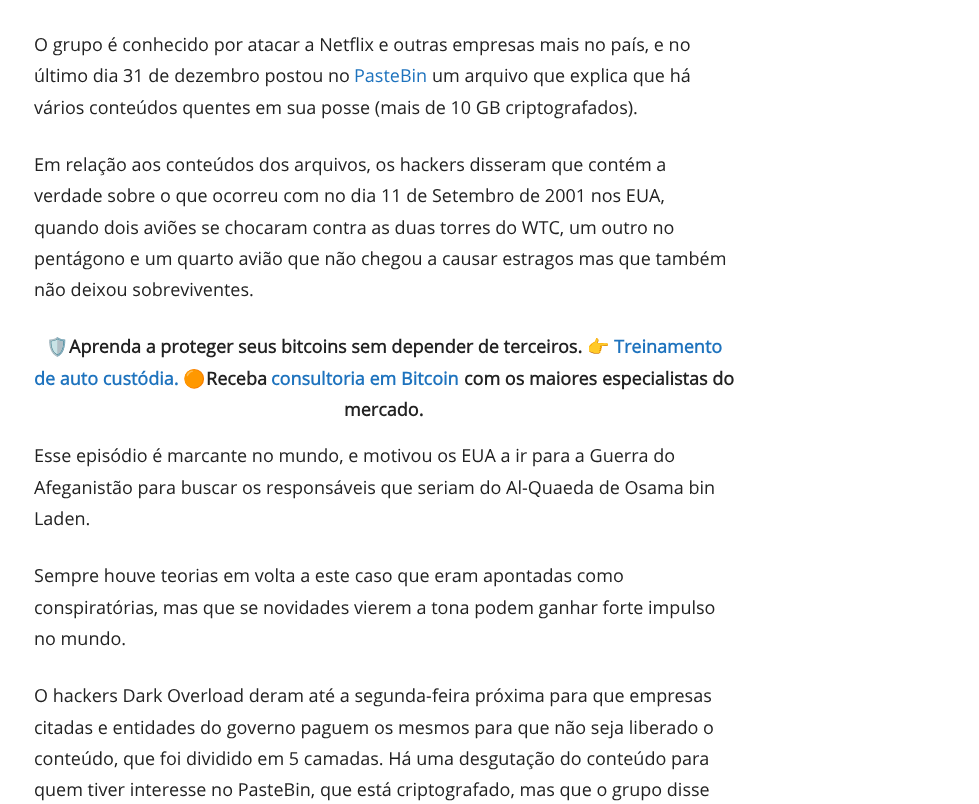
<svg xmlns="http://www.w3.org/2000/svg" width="979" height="804">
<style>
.a{font:18px Open Sans;fill:#222}
.b{font:18px Open Sans;fill:#1e73be}
.c{font:bold 18px Noto Color Emoji;fill:#222}
.d{font:bold 18px Open Sans;fill:#222}
.e{font:bold 18px Noto Color Emoji;fill:#1e73be}
.f{font:bold 18px Open Sans;fill:#1e73be}
</style>
<rect width="100%" height="100%" fill="#fff"/>
<text class="a" x="34" y="51">O grupo é conhecido por atacar a Netflix e outras empresas mais no país, e no</text>
<text class="a" x="34" y="82">último dia 31 de dezembro postou no</text>
<text class="b" x="354" y="82">PasteBin</text>
<text class="a" x="432" y="82">um arquivo que explica que há</text>
<text class="a" x="34" y="114">vários conteúdos quentes em sua posse (mais de 10 GB criptografados).</text>
<text class="a" x="34" y="171">Em relação aos conteúdos dos arquivos, os hackers disseram que contém a</text>
<text class="a" x="34" y="202">verdade sobre o que ocorreu com no dia 11 de Setembro de 2001 nos EUA,</text>
<text class="a" x="34" y="234">quando dois aviões se chocaram contra as duas torres do WTC, um outro no</text>
<text class="a" x="34" y="265">pentágono e um quarto avião que não chegou a causar estragos mas que também</text>
<text class="a" x="34" y="296">não deixou sobreviventes.</text>
<text class="c" x="46" y="353">🛡️</text>
<text class="d" x="69" y="353">Aprenda a proteger seus bitcoins sem depender de terceiros.</text>
<text class="e" x="587" y="353">👉</text>
<text class="f" x="614" y="353">Treinamento</text>
<text class="f" x="34" y="385">de auto custódia.</text>
<text class="c" x="183" y="385">🟠</text>
<text class="d" x="206" y="385">Receba</text>
<text class="f" x="271" y="385">consultoria em Bitcoin</text>
<text class="d" x="464" y="385">com os maiores especialistas do</text>
<text class="d" x="344" y="416">mercado.</text>
<text class="a" x="34" y="462">Esse episódio é marcante no mundo, e motivou os EUA a ir para a Guerra do</text>
<text class="a" x="34" y="494">Afeganistão para buscar os responsáveis que seriam do Al-Quaeda de Osama bin</text>
<text class="a" x="34" y="525">Laden.</text>
<text class="a" x="34" y="582">Sempre houve teorias em volta a este caso que eram apontadas como</text>
<text class="a" x="34" y="614">conspiratórias, mas que se novidades vierem a tona podem ganhar forte impulso</text>
<text class="a" x="34" y="645">no mundo.</text>
<text class="a" x="34" y="702">O hackers Dark Overload deram até a segunda-feira próxima para que empresas</text>
<text class="a" x="34" y="734">citadas e entidades do governo paguem os mesmos para que não seja liberado o</text>
<text class="a" x="34" y="765">conteúdo, que foi dividido em 5 camadas. Há uma desgutação do conteúdo para</text>
<text class="a" x="34" y="796">quem tiver interesse no PasteBin, que está criptografado, mas que o grupo disse</text>
</svg>
